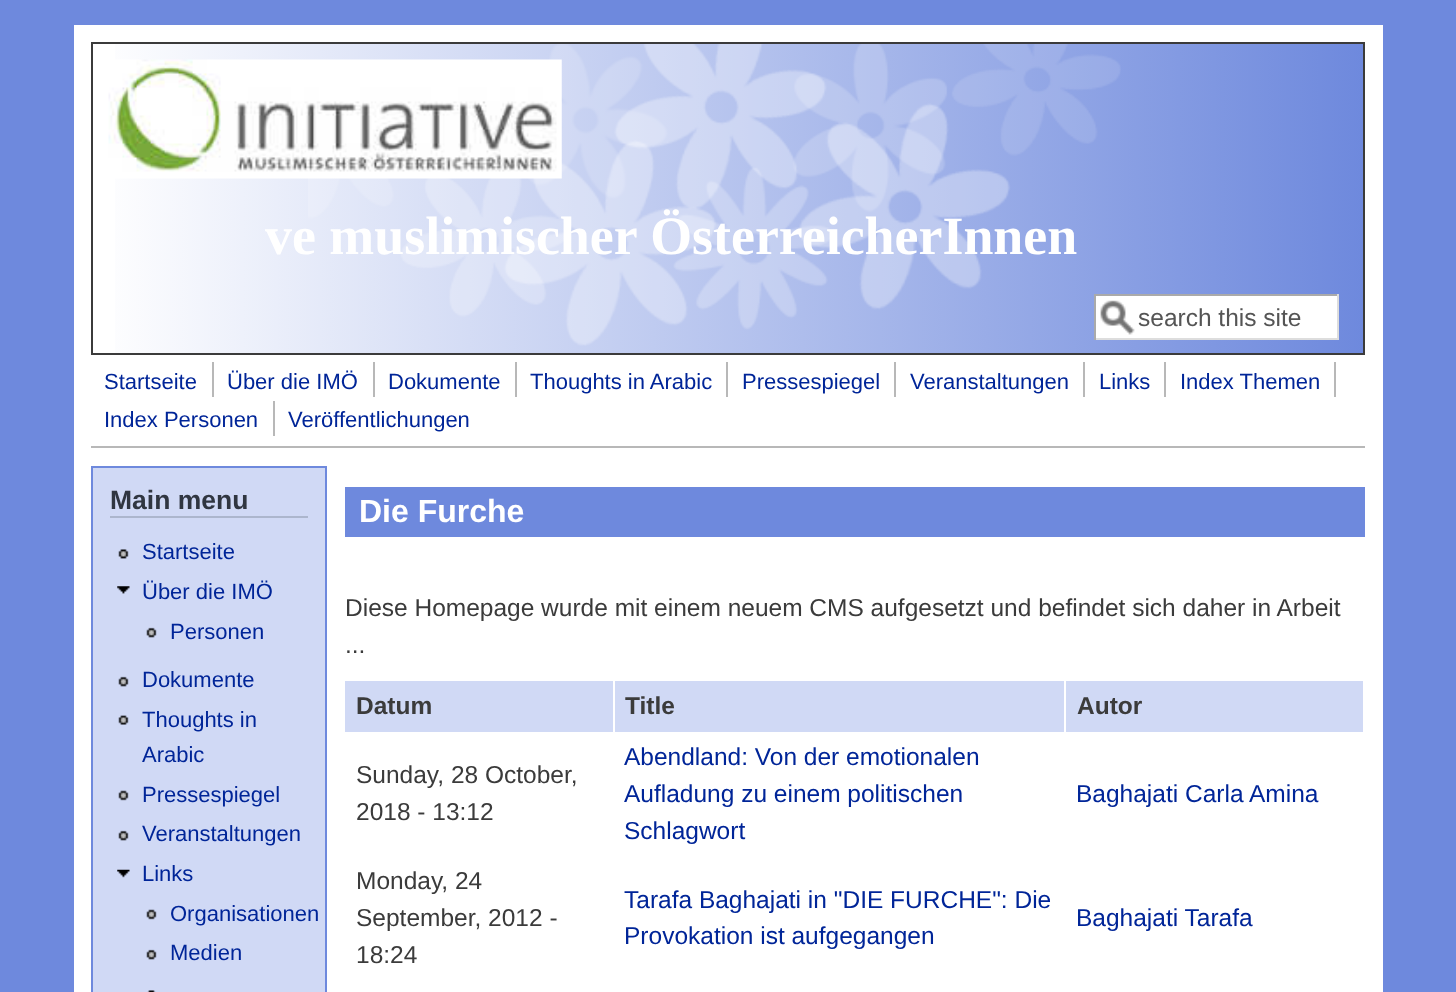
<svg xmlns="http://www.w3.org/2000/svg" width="1456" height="992">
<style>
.a{font:bold 53.9px Liberation Serif;fill:#fff}
.b{font:24.5px Liberation Sans;fill:#555}
.c{font:22px Liberation Sans;fill:#002598}
.d{font:bold 26.5px Liberation Sans;fill:#303641}
.e{font:bold 32px Liberation Sans;fill:#fff}
.f{font:24.5px Liberation Sans;fill:#3b3b3b}
.g{font:bold 24.5px Liberation Sans;fill:#3b3b3b}
.h{font:24.5px Liberation Sans;fill:#002598}
</style>
<defs>
<linearGradient id="g1" gradientUnits="userSpaceOnUse" x1="93" y1="199" x2="1363" y2="199"><stop offset="0" stop-color="#fff"/><stop offset="1" stop-color="#6e89dd"/></linearGradient>
</defs>
<rect width="100%" height="100%" fill="#6e89dd"/>
<path fill="#fff" d="M74 25h1309v967H74z"/>
<path fill="url(#g1)" d="M115 44h1248v309H115z"/>
<path fill="none" stroke="#3b3b3b" stroke-width="2" d="M92 43h1272v311H92z"/>
<image href="1.png" x="308" y="44" width="813" height="302"/>
<image href="2.png" x="108" y="59" width="454" height="120"/>
<path fill="#fff" d="M1096 296h241v42H1096z"/>
<image href="3.png" x="1100" y="300" width="35" height="35"/>
<path fill="#aaa" d="M1094 294h245v2H1094z"/>
<path fill="#ddd" d="M1337 294h2v46H1337z"/>
<path fill="#ddd" d="M1094 338h245v2H1094z"/>
<path fill="#aaa" d="M1094 294h2v46H1094z"/>
<path fill="#b8b8b8" d="M91 446h1274v2H91z"/>
<path fill="#b8b8b8" d="M212 362h2v35H212z"/>
<path fill="#b8b8b8" d="M373 362h2v35H373z"/>
<path fill="#b8b8b8" d="M515 362h2v35H515z"/>
<path fill="#b8b8b8" d="M726 362h2v35H726z"/>
<path fill="#b8b8b8" d="M894 362h2v35H894z"/>
<path fill="#b8b8b8" d="M1083 362h2v35H1083z"/>
<path fill="#b8b8b8" d="M1164 362h2v35H1164z"/>
<path fill="#b8b8b8" d="M1334 362h2v35H1334z"/>
<path fill="#b8b8b8" d="M273 401h2v35H273z"/>
<path fill="#d0d9f5" stroke="#6e89dd" stroke-width="2" d="M92 467h234v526H92z"/>
<path fill="#acb6cd" d="M110 516h198v2H110z"/>
<image href="4.png" x="118" y="549" width="11" height="10"/>
<image href="5.png" x="117" y="586" width="13" height="8"/>
<image href="6.png" x="146" y="627" width="11" height="11"/>
<image href="6.png" x="118" y="676" width="11" height="11"/>
<image href="7.png" x="118" y="715" width="11" height="10"/>
<image href="8.png" x="118" y="790" width="11" height="11"/>
<image href="6.png" x="118" y="830" width="11" height="11"/>
<image href="9.png" x="117" y="869" width="13" height="9"/>
<image href="8.png" x="146" y="909" width="11" height="11"/>
<image href="6.png" x="146" y="949" width="11" height="11"/>
<image href="10.png" x="147" y="990" width="9" height="2"/>
<path fill="#6e89dd" d="M345 487h1020v50H345z"/>
<path fill="#d0d9f5" d="M345 681h268v51H345z"/>
<path fill="#d0d9f5" d="M615 681h449v51H615z"/>
<path fill="#d0d9f5" d="M1066 681h297v51H1066z"/>
<text class="a" x="265" y="254">ve muslimischer ÖsterreicherInnen</text>
<text class="b" x="1138" y="326">search this site</text>
<text class="c" x="104" y="389">Startseite</text>
<text class="c" x="227" y="389">Über die IMÖ</text>
<text class="c" x="388" y="389">Dokumente</text>
<text class="c" x="530" y="389">Thoughts in Arabic</text>
<text class="c" x="742" y="389">Pressespiegel</text>
<text class="c" x="910" y="389">Veranstaltungen</text>
<text class="c" x="1099" y="389">Links</text>
<text class="c" x="1180" y="389">Index Themen</text>
<text class="c" x="104" y="427">Index Personen</text>
<text class="c" x="288" y="427">Veröffentlichungen</text>
<text class="d" x="110" y="509">Main menu</text>
<text class="c" x="142" y="559">Startseite</text>
<text class="c" x="142" y="599">Über die IMÖ</text>
<text class="c" x="170" y="639">Personen</text>
<text class="c" x="142" y="687">Dokumente</text>
<text class="c" x="142" y="727">Thoughts in</text>
<text class="c" x="142" y="762">Arabic</text>
<text class="c" x="142" y="802">Pressespiegel</text>
<text class="c" x="142" y="841">Veranstaltungen</text>
<text class="c" x="142" y="881">Links</text>
<text class="c" x="170" y="921">Organisationen</text>
<text class="c" x="170" y="960">Medien</text>
<text class="e" x="359" y="522">Die Furche</text>
<text class="f" x="345" y="616">Diese Homepage wurde mit einem neuem CMS aufgesetzt und befindet sich daher in Arbeit</text>
<text class="f" x="345" y="653">...</text>
<text class="g" x="356" y="714">Datum</text>
<text class="g" x="625" y="714">Title</text>
<text class="g" x="1077" y="714">Autor</text>
<text class="f" x="356" y="783">Sunday, 28 October,</text>
<text class="f" x="356" y="820">2018 - 13:12</text>
<text class="h" x="624" y="765">Abendland: Von der emotionalen</text>
<text class="h" x="624" y="802">Aufladung zu einem politischen</text>
<text class="h" x="624" y="839">Schlagwort</text>
<text class="h" x="1076" y="802">Baghajati Carla Amina</text>
<text class="f" x="356" y="889">Monday, 24</text>
<text class="f" x="356" y="926">September, 2012 -</text>
<text class="f" x="356" y="963">18:24</text>
<text class="h" x="624" y="908">Tarafa Baghajati in "DIE FURCHE": Die</text>
<text class="h" x="624" y="944">Provokation ist aufgegangen</text>
<text class="h" x="1076" y="926">Baghajati Tarafa</text>
</svg>
